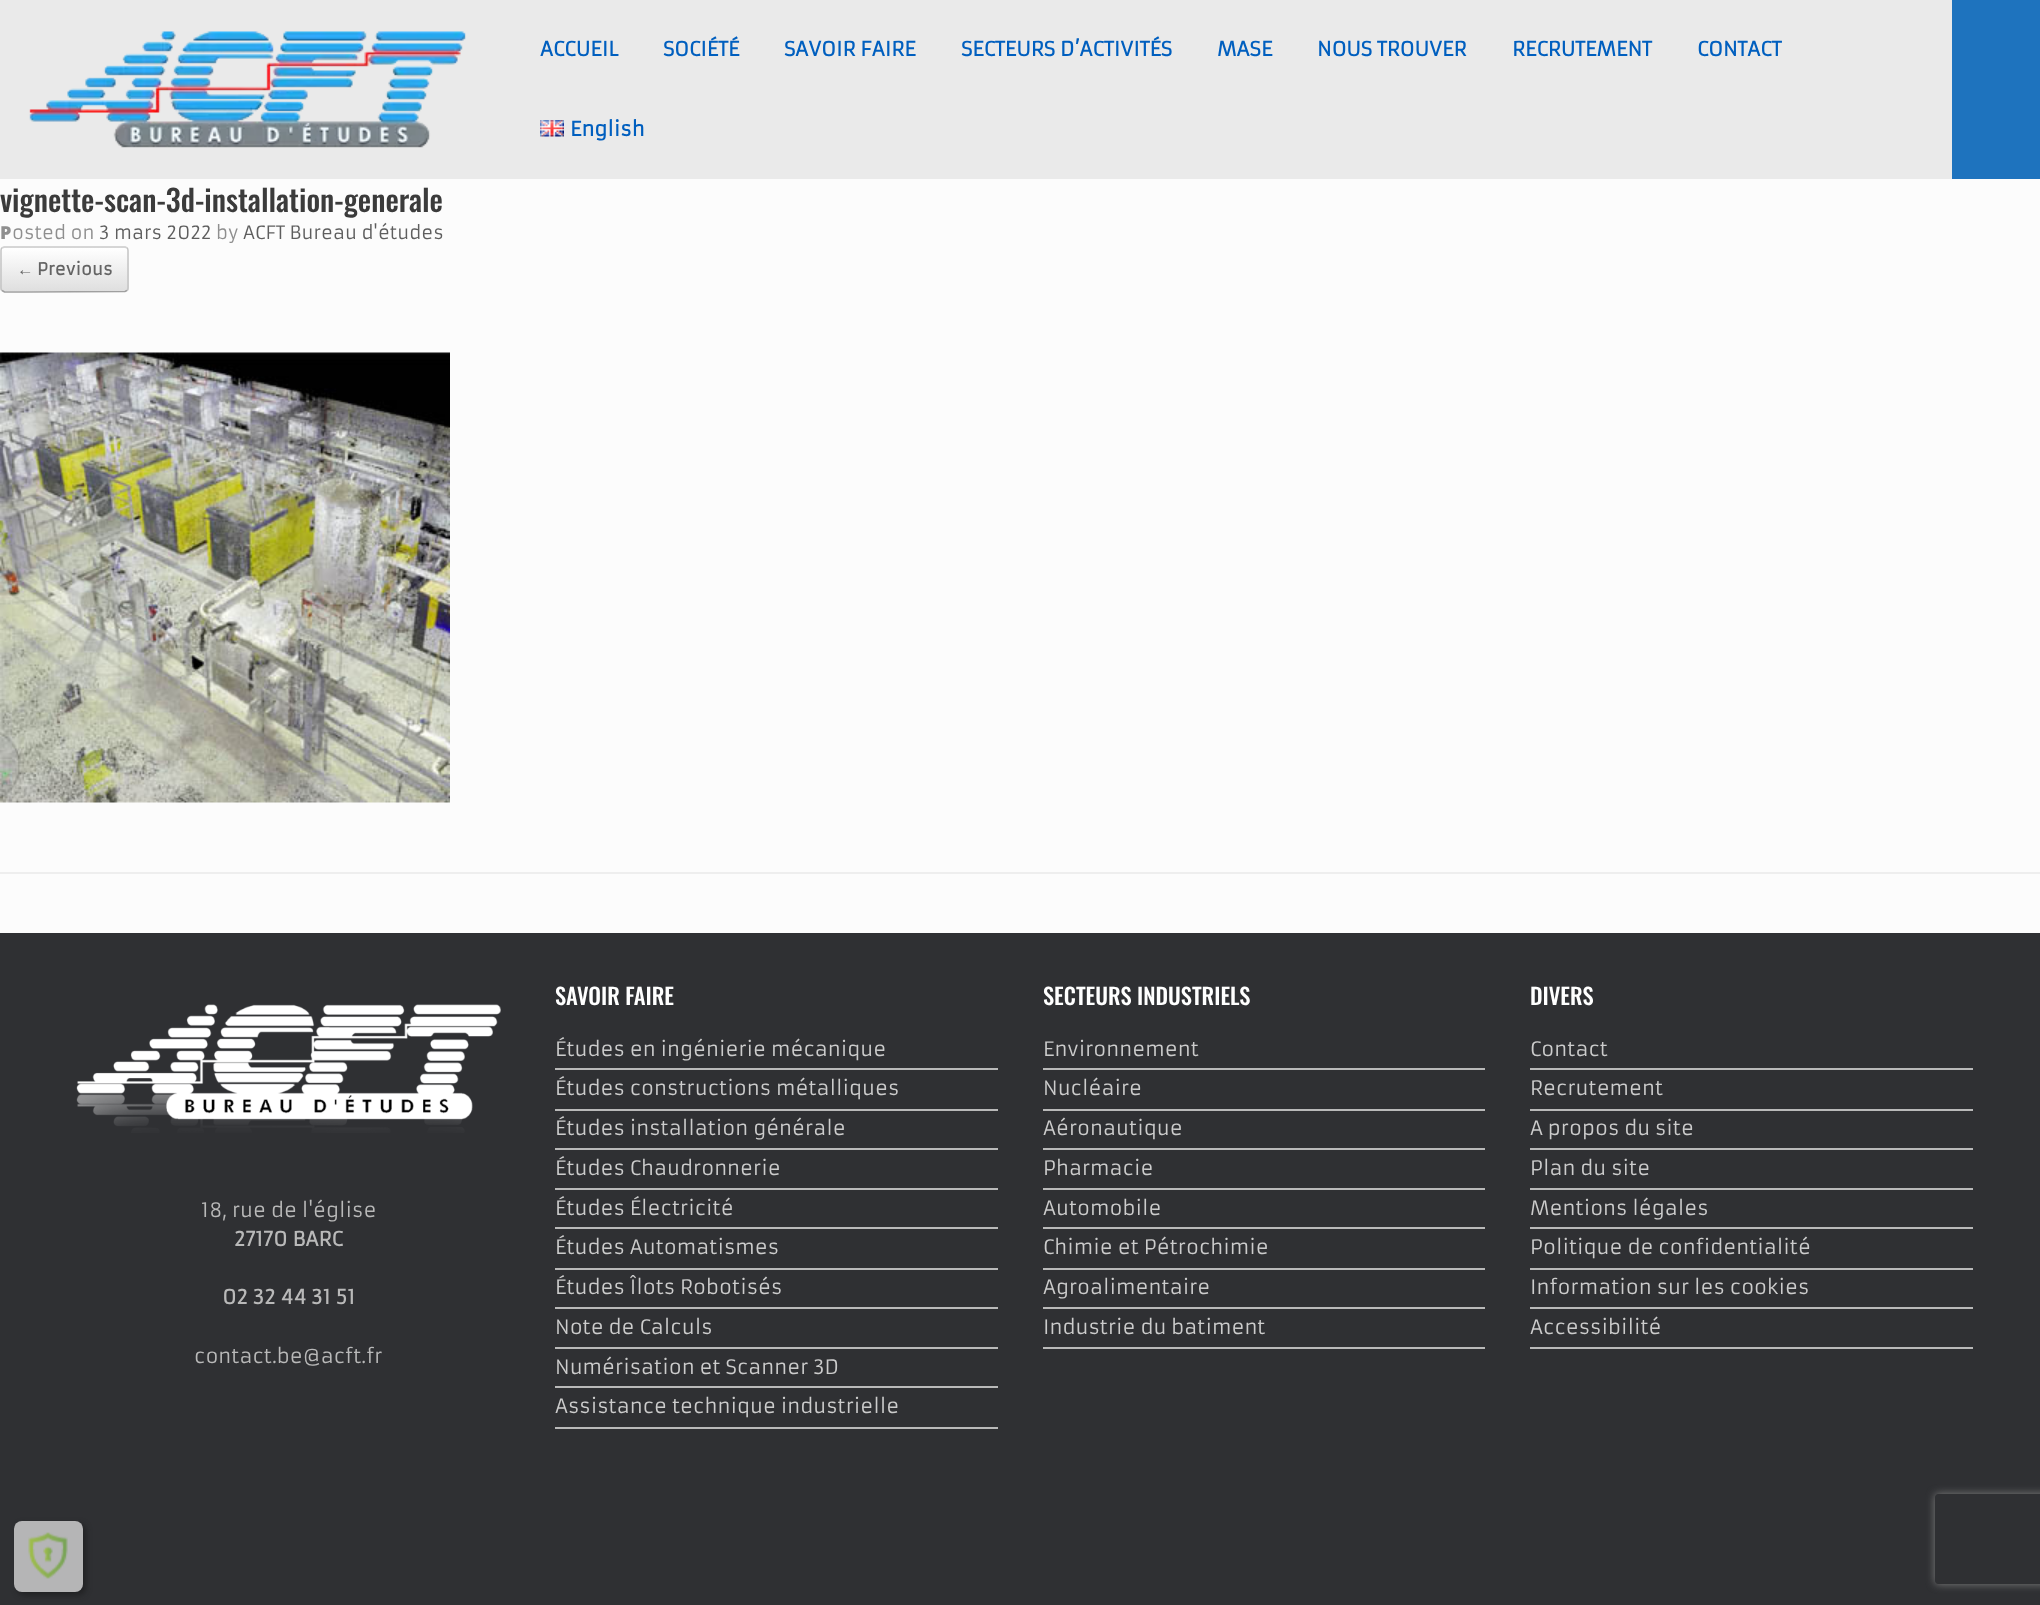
<svg xmlns="http://www.w3.org/2000/svg" width="2040" height="1605">
<style>
.a{font:bold 19.5px Armata;fill:#005fbf}
.b{font:500 30px Oswald;fill:#3b3b3b}
.c{font:900 18px Noto Sans;fill:#8f8f8f}
.d{font:18px Armata;fill:#8f8f8f}
.e{font:18px Armata;fill:#5e5e5e}
.f{font:bold 16.5px Liberation Serif;fill:#646464}
.g{font:bold 16.5px Armata;fill:#646464}
.h{font:19.5px Armata;fill:#b9b9b9}
.i{font:bold 19.5px Armata;fill:#b9b9b9}
.j{font:500 22.5px Oswald;fill:#fff}
.k{font:19.5px Armata;fill:#ccc}
</style>
<defs>
<clipPath id="clip1"><rect y="246" width="129" height="47" rx="5"/></clipPath>
<linearGradient id="g1" gradientUnits="userSpaceOnUse" x1="1.5" y1="248" x2="1.5" y2="204"><stop offset="0" stop-color="#dfdfdf"/><stop offset="1" stop-color="#fff"/></linearGradient>
<linearGradient id="g2" gradientUnits="userSpaceOnUse" x1="1.5" y1="291" x2="1.5" y2="248"><stop offset="0" stop-color="#dfdfdf"/><stop offset="1" stop-color="#fff"/></linearGradient>
<linearGradient id="g3" gradientUnits="userSpaceOnUse" x1="1.5" y1="335" x2="1.5" y2="291"><stop offset="0" stop-color="#dfdfdf"/><stop offset="1" stop-color="#fff"/></linearGradient>
<clipPath id="clip2"><path d="M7 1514h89v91h-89zm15 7h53c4.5 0 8 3.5 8 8v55c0 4.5-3.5 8-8 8h-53c-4.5 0-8-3.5-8-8v-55c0-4.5 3.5-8 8-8z" clip-rule="evenodd"/></clipPath>
<clipPath id="clip3"><path d="M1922 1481h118v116h-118zm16 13h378c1.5 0 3 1.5 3 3v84c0 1.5-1.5 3-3 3h-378c-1.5 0-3-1.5-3-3v-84c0-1.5 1.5-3 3-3z" clip-rule="evenodd"/></clipPath>
</defs>
<rect width="100%" height="100%" fill="#2f3033"/>
<path fill="#eaeaea" d="M0 0h1952v179H0z"/>
<image href="1.png" x="29" y="31" width="437" height="117"/>
<image href="2.png" x="540" y="120" width="24" height="17"/>
<path fill="#1e73be" d="M1952 0h88v179H1952z"/>
<path fill="#fcfcfc" d="M0 179h2040v754H0z"/>
<path fill="#eee" d="M0 872h2040v2H0z"/>
<g clip-path="url(#clip1)">
<path fill="url(#g1)" d="M0 246h129v2H0z"/>
<path fill="url(#g2)" d="M0 248h129v43H0z"/>
<path fill="url(#g3)" d="M0 291h129v2H0z"/>
</g>
<path fill="none" stroke="#d2d2d2" stroke-width="1.5" d="M2 248l2.5-1h120.5l2 1"/>
<path fill="none" stroke="#c3c3c3" stroke-width="1.5" d="M127 248c1 .5 1 1.5 1 2.5v37.5c0 1 0 2-1 2.5"/>
<path fill="none" stroke="#9f9f9f" stroke-width="1.5" d="M127 290.5l-2 1l-100.5 .5h-20l-2.5-1.5"/>
<path fill="none" stroke="#c3c3c3" stroke-width="1.5" d="M2 290.5c-1-.5-1-1.5-1-2.5v-37.5c0-1 0-2 1-2.5"/>
<image href="3.png" x="0" y="352" width="450" height="451"/>
<image href="4.png" x="76" y="1004" width="425" height="129"/>
<path fill="#b9b9b9" d="M555 1068h443v2H555z"/>
<path fill="#b9b9b9" d="M555 1109h443v2H555z"/>
<path fill="#b9b9b9" d="M555 1148h443v2H555z"/>
<path fill="#b9b9b9" d="M555 1188h443v2H555z"/>
<path fill="#b9b9b9" d="M555 1227h443v2H555z"/>
<path fill="#b9b9b9" d="M555 1268h443v2H555z"/>
<path fill="#b9b9b9" d="M555 1307h443v2H555z"/>
<path fill="#b9b9b9" d="M555 1347h443v2H555z"/>
<path fill="#b9b9b9" d="M555 1386h443v2H555z"/>
<path fill="#b9b9b9" d="M555 1427h443v2H555z"/>
<path fill="#b9b9b9" d="M1043 1068h442v2H1043z"/>
<path fill="#b9b9b9" d="M1043 1109h442v2H1043z"/>
<path fill="#b9b9b9" d="M1043 1148h442v2H1043z"/>
<path fill="#b9b9b9" d="M1043 1188h442v2H1043z"/>
<path fill="#b9b9b9" d="M1043 1227h442v2H1043z"/>
<path fill="#b9b9b9" d="M1043 1268h442v2H1043z"/>
<path fill="#b9b9b9" d="M1043 1307h442v2H1043z"/>
<path fill="#b9b9b9" d="M1043 1347h442v2H1043z"/>
<path fill="#b9b9b9" d="M1530 1068h443v2H1530z"/>
<path fill="#b9b9b9" d="M1530 1109h443v2H1530z"/>
<path fill="#b9b9b9" d="M1530 1148h443v2H1530z"/>
<path fill="#b9b9b9" d="M1530 1188h443v2H1530z"/>
<path fill="#b9b9b9" d="M1530 1227h443v2H1530z"/>
<path fill="#b9b9b9" d="M1530 1268h443v2H1530z"/>
<path fill="#b9b9b9" d="M1530 1307h443v2H1530z"/>
<path fill="#b9b9b9" d="M1530 1347h443v2H1530z"/>
<g clip-path="url(#clip2)">
<rect fill="#0e0e0f78" filter="blur(3px)" x="17" y="1524" width="69" height="71" rx="8"/>
</g>
<rect fill="#b7b7b8fc" x="14" y="1521" width="69" height="71" rx="8"/>
<image href="5.png" x="28" y="1532" width="40" height="47"/>
<g clip-path="url(#clip3)">
<rect fill="#808080" filter="blur(4px)" x="1935" y="1494" width="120" height="90" rx="3"/>
</g>
<text class="a" x="540" y="56">ACCUEIL</text>
<text class="a" x="663" y="56">SOCIÉTÉ</text>
<text class="a" x="784" y="56">SAVOIR FAIRE</text>
<text class="a" x="961" y="56">SECTEURS D’ACTIVITÉS</text>
<text class="a" x="1217" y="56">MASE</text>
<text class="a" x="1317" y="56">NOUS TROUVER</text>
<text class="a" x="1512" y="56">RECRUTEMENT</text>
<text class="a" x="1697" y="56">CONTACT</text>
<text class="a" x="570" y="136">English</text>
<text class="b" x="0" y="212">vignette-scan-3d-installation-generale</text>
<text class="c" x="0" y="239">P</text>
<text class="d" x="12" y="239">osted on</text>
<text class="e" x="99" y="239">3 mars 2022</text>
<text class="d" x="216" y="239">by</text>
<text class="e" x="243" y="239">ACFT Bureau d'études</text>
<text class="f" x="17" y="275">←</text>
<text class="g" x="37" y="275">Previous</text>
<text class="h" x="201" y="1217">18, rue de l'église</text>
<text class="i" x="234" y="1246">27170 BARC</text>
<text class="i" x="222" y="1304">02 32 44 31 51</text>
<text class="h" x="194" y="1363">contact.be@acft.fr</text>
<text class="j" x="555" y="1005">SAVOIR FAIRE</text>
<text class="k" x="555" y="1056">Études en ingénierie mécanique</text>
<text class="k" x="555" y="1095">Études constructions métalliques</text>
<text class="k" x="555" y="1135">Études installation générale</text>
<text class="k" x="555" y="1175">Études Chaudronnerie</text>
<text class="k" x="555" y="1215">Études Électricité</text>
<text class="k" x="555" y="1254">Études Automatismes</text>
<text class="k" x="555" y="1294">Études Îlots Robotisés</text>
<text class="k" x="555" y="1334">Note de Calculs</text>
<text class="k" x="555" y="1374">Numérisation et Scanner 3D</text>
<text class="k" x="555" y="1413">Assistance technique industrielle</text>
<text class="j" x="1043" y="1005">SECTEURS INDUSTRIELS</text>
<text class="k" x="1043" y="1056">Environnement</text>
<text class="k" x="1043" y="1095">Nucléaire</text>
<text class="k" x="1043" y="1135">Aéronautique</text>
<text class="k" x="1043" y="1175">Pharmacie</text>
<text class="k" x="1043" y="1215">Automobile</text>
<text class="k" x="1043" y="1254">Chimie et Pétrochimie</text>
<text class="k" x="1043" y="1294">Agroalimentaire</text>
<text class="k" x="1043" y="1334">Industrie du batiment</text>
<text class="j" x="1530" y="1005">DIVERS</text>
<text class="k" x="1530" y="1056">Contact</text>
<text class="k" x="1530" y="1095">Recrutement</text>
<text class="k" x="1530" y="1135">A propos du site</text>
<text class="k" x="1530" y="1175">Plan du site</text>
<text class="k" x="1530" y="1215">Mentions légales</text>
<text class="k" x="1530" y="1254">Politique de confidentialité</text>
<text class="k" x="1530" y="1294">Information sur les cookies</text>
<text class="k" x="1530" y="1334">Accessibilité</text>
</svg>
